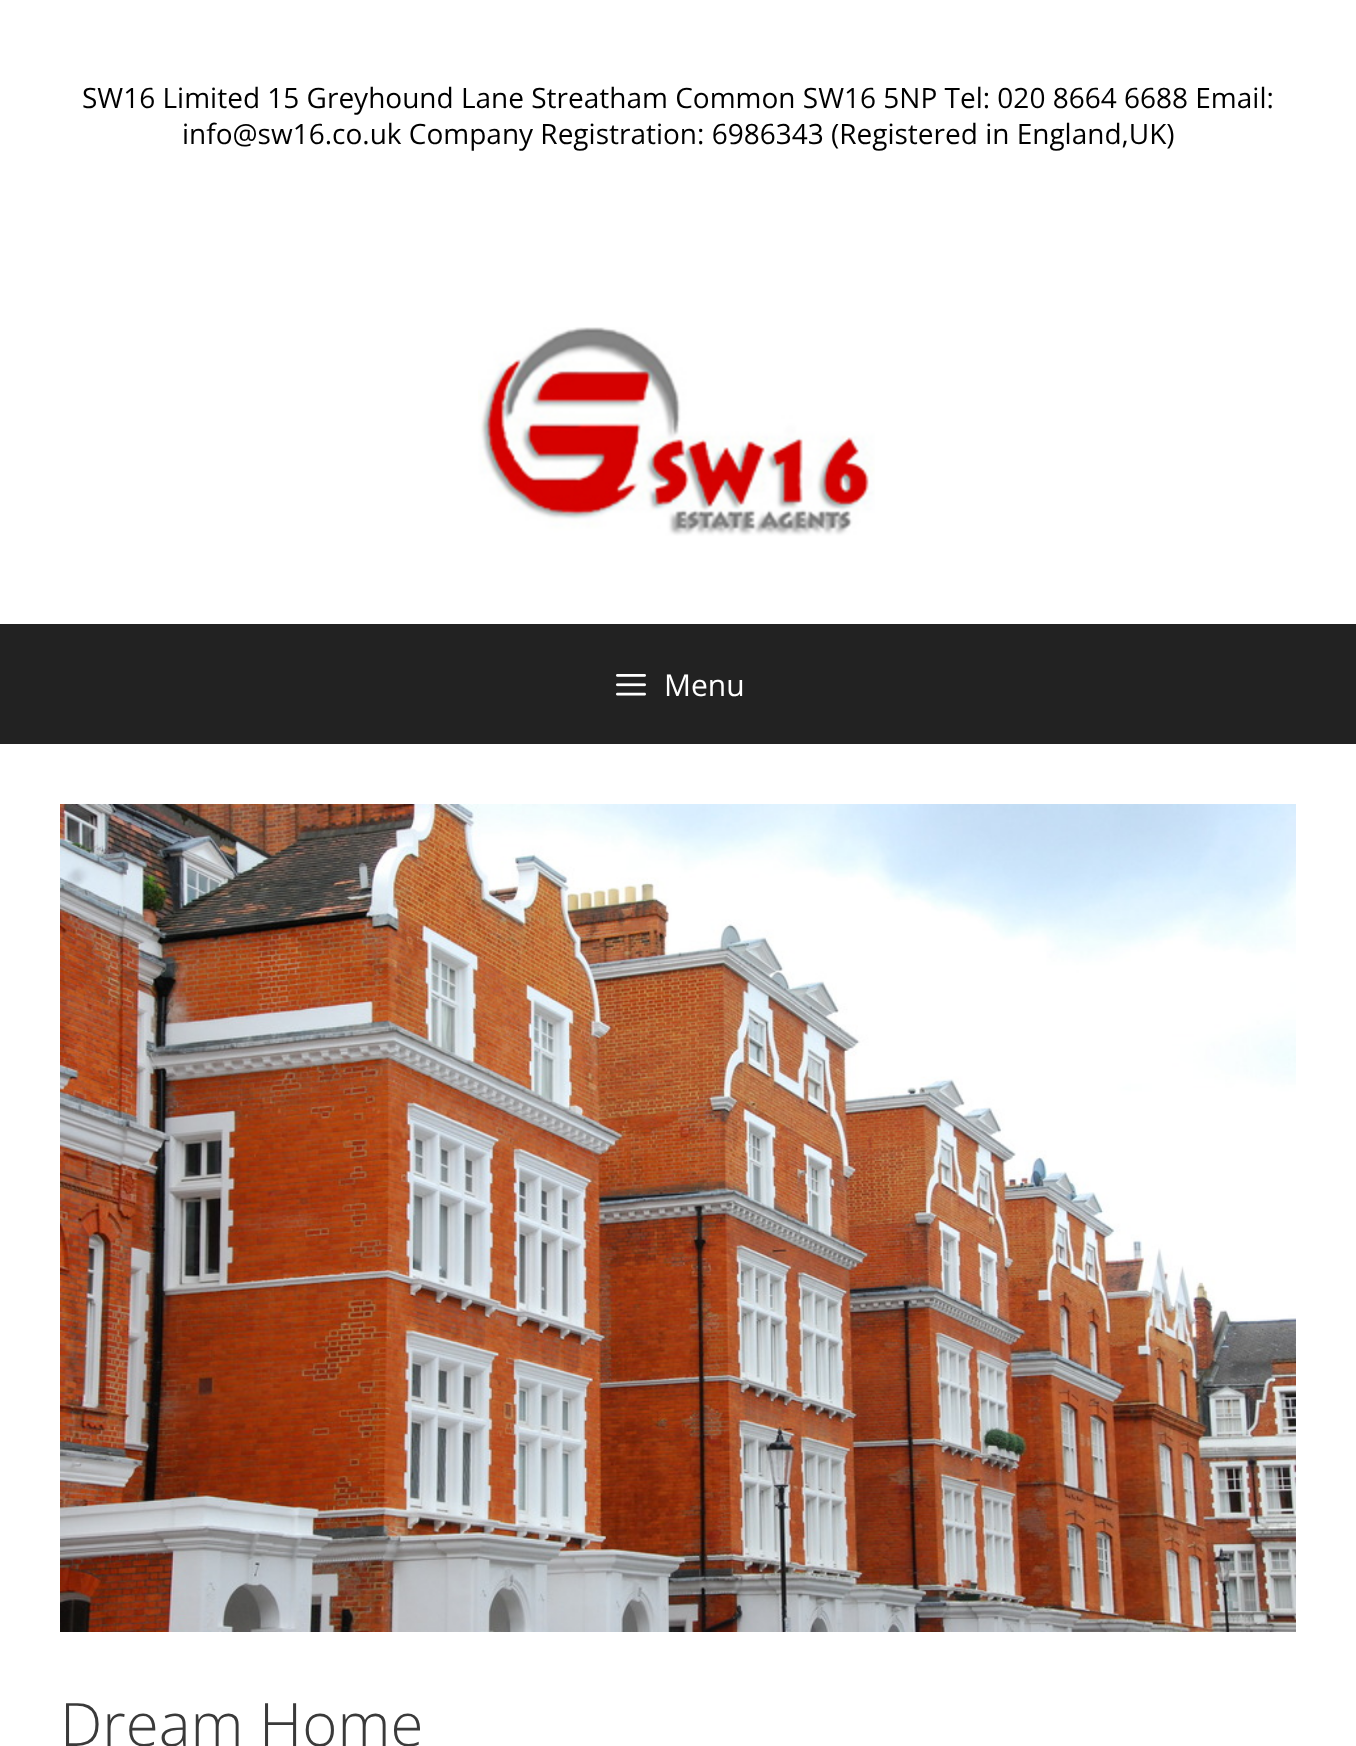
<svg xmlns="http://www.w3.org/2000/svg" width="1356" height="1746">
<style>
.a{font:28px Open Sans;fill:#000}
.b{font:30px Open Sans;fill:#fff}
.c{font:300 60px Open Sans;fill:#3a3a3a}
</style>
<rect width="100%" height="100%" fill="#222"/>
<path fill="#fff" d="M0 0h1356v624H0z"/>
<image href="1.png" x="478" y="327" width="397" height="209"/>
<image href="2.png" x="616" y="674" width="30" height="22"/>
<path fill="#fff" d="M0 744h1356v1002H0z"/>
<image href="3.png" x="60" y="804" width="1236" height="828"/>
<text class="a" x="82" y="108">SW16 Limited 15 Greyhound Lane Streatham Common SW16 5NP Tel: 020 8664 6688 Email:</text>
<text class="a" x="182" y="144">info@sw16.co.uk Company Registration: 6986343 (Registered in England,UK)</text>
<text class="b" x="664" y="696">Menu</text>
<text class="c" x="60" y="1746">Dream Home</text>
</svg>
